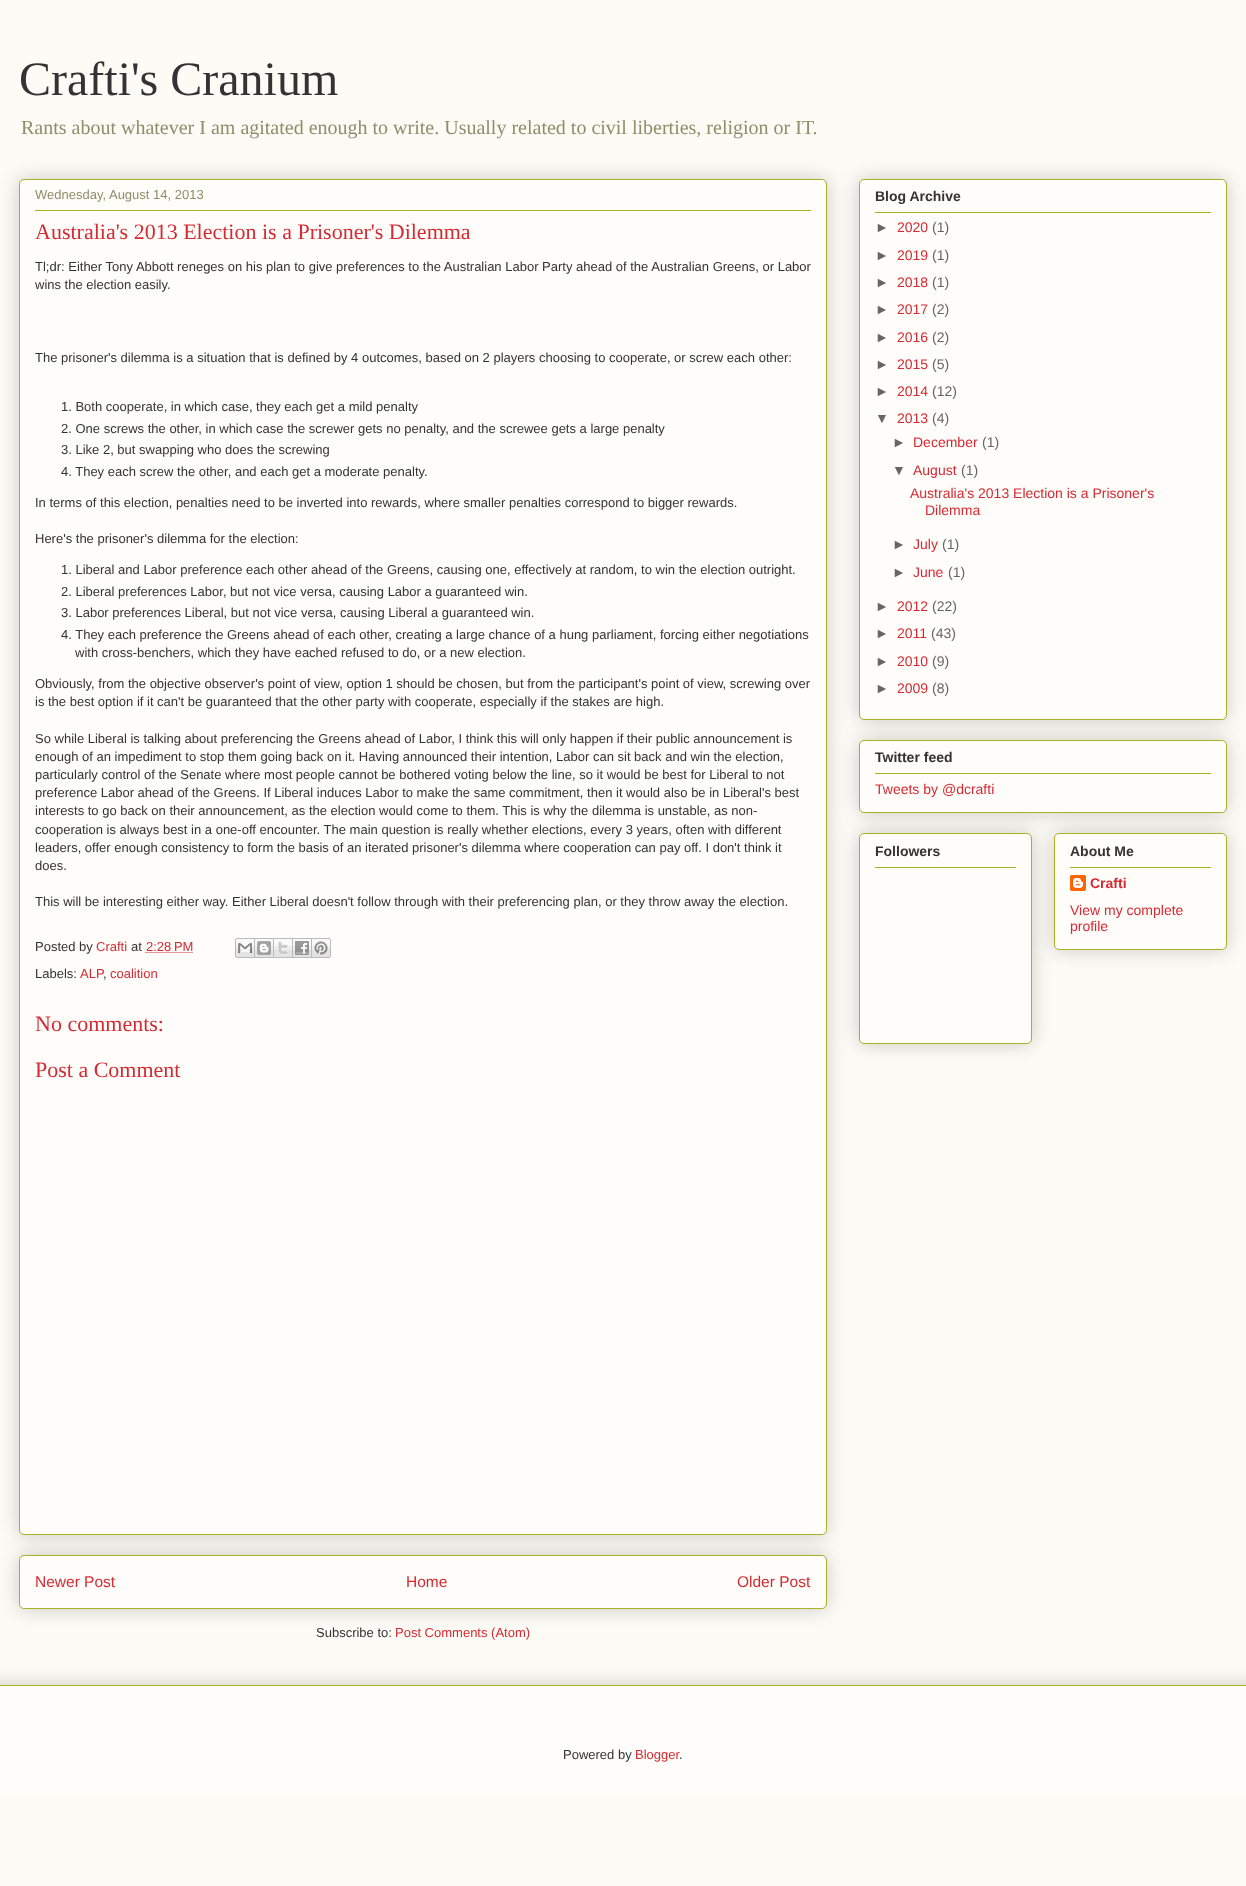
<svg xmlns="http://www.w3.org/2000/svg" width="1246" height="1886">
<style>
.a{font:48px Liberation Serif;fill:#333}
.b{font:20px Liberation Serif;fill:#908d6a}
.c{font:13px Liberation Sans;fill:#908d6a}
.d{font:22px Liberation Serif;fill:#d52a33}
.e{font:13px Liberation Sans;fill:#333}
.f{font:13px Liberation Sans;fill:#d52a33}
.g{font:15.5px Liberation Sans;fill:#d52a33}
.h{font:bold 14px Liberation Sans;fill:#333}
.i{font:14px Liberation Sans;fill:#666}
.j{font:14px Liberation Sans;fill:#d52a33}
.k{font:bold 14px Liberation Sans;fill:#d52a33}
</style>
<defs>
<clipPath id="clip1"><path d="M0 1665h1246v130H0z"/></clipPath>
</defs>
<rect width="100%" height="100%" fill="#fcfbf5"/>
<rect fill="#00000033" filter="blur(10px)" x="19" y="1555" width="808" height="54" rx="5"/>
<rect fill="#fefdfa" stroke="#aab123" x="19.5" y="1555.5" width="807" height="53" rx="4.5"/>
<rect fill="#00000033" filter="blur(10px)" x="19" y="179" width="808" height="1356" rx="5"/>
<rect fill="#fefdfa" stroke="#aab123" x="19.5" y="179.5" width="807" height="1355" rx="4.5"/>
<path fill="#aab123" d="M35 210h776v1H35z"/>
<path fill="none" stroke="#d52a33" stroke-dasharray="1 1" d="M145.5 952.5h47.5"/>
<image href="1.png" x="235" y="938" width="20" height="20"/>
<image href="2.png" x="255" y="938" width="19" height="20"/>
<image href="3.png" x="274" y="938" width="19" height="20"/>
<image href="4.png" x="293" y="938" width="19" height="20"/>
<image href="5.png" x="312" y="938" width="19" height="20"/>
<rect fill="#00000033" filter="blur(10px)" x="859" y="179" width="368" height="541" rx="5"/>
<rect fill="#fefdfa" stroke="#aab123" x="859.5" y="179.5" width="367" height="540" rx="4.5"/>
<path fill="#aab123" d="M875 212h336v1H875z"/>
<rect fill="#00000033" filter="blur(10px)" x="859" y="740" width="368" height="73" rx="5"/>
<rect fill="#fefdfa" stroke="#aab123" x="859.5" y="740.5" width="367" height="72" rx="4.5"/>
<path fill="#aab123" d="M875 773h336v1H875z"/>
<rect fill="#00000033" filter="blur(10px)" x="859" y="833" width="173" height="211" rx="5"/>
<rect fill="#fefdfa" stroke="#aab123" x="859.5" y="833.5" width="172" height="210" rx="4.5"/>
<path fill="#aab123" d="M875 867h141v1H875z"/>
<rect fill="#00000033" filter="blur(10px)" x="1054" y="833" width="173" height="117" rx="5"/>
<rect fill="#fefdfa" stroke="#aab123" x="1054.5" y="833.5" width="172" height="116" rx="4.5"/>
<path fill="#aab123" d="M1070 867h141v1H1070z"/>
<image href="6.png" x="1070" y="875" width="16" height="16"/>
<g clip-path="url(#clip1)">
<path fill="#00000033" filter="blur(10px)" d="M-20 1685h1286v110H-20z"/>
</g>
<path fill="#fefdfa" d="M0 1686h1246v109H0z"/>
<path fill="#aab123" d="M0 1685h1246v1H0z"/>
<text class="a" x="19" y="95">Crafti's Cranium</text>
<text class="b" x="21" y="134">Rants about whatever I am agitated enough to write. Usually related to civil liberties, religion or IT.</text>
<text class="c" x="35" y="199">Wednesday, August 14, 2013</text>
<text class="d" x="35" y="239">Australia's 2013 Election is a Prisoner's Dilemma</text>
<text class="e" x="35" y="271">Tl;dr: Either Tony Abbott reneges on his plan to give preferences to the Australian Labor Party ahead of the Australian Greens, or Labor</text>
<text class="e" x="35" y="289">wins the election easily.</text>
<text class="e" x="35" y="362">The prisoner's dilemma is a situation that is defined by 4 outcomes, based on 2 players choosing to cooperate, or screw each other:</text>
<text class="e" x="61" y="411">1. Both cooperate, in which case, they each get a mild penalty</text>
<text class="e" x="61" y="433">2. One screws the other, in which case the screwer gets no penalty, and the screwee gets a large penalty</text>
<text class="e" x="61" y="454">3. Like 2, but swapping who does the screwing</text>
<text class="e" x="61" y="476">4. They each screw the other, and each get a moderate penalty.</text>
<text class="e" x="35" y="507">In terms of this election, penalties need to be inverted into rewards, where smaller penalties correspond to bigger rewards.</text>
<text class="e" x="35" y="543">Here's the prisoner's dilemma for the election:</text>
<text class="e" x="61" y="574">1. Liberal and Labor preference each other ahead of the Greens, causing one, effectively at random, to win the election outright.</text>
<text class="e" x="61" y="596">2. Liberal preferences Labor, but not vice versa, causing Labor a guaranteed win.</text>
<text class="e" x="61" y="617">3. Labor preferences Liberal, but not vice versa, causing Liberal a guaranteed win.</text>
<text class="e" x="61" y="639">4. They each preference the Greens ahead of each other, creating a large chance of a hung parliament, forcing either negotiations</text>
<text class="e" x="75" y="657">with cross-benchers, which they have eached refused to do, or a new election.</text>
<text class="e" x="35" y="688">Obviously, from the objective observer's point of view, option 1 should be chosen, but from the participant's point of view, screwing over</text>
<text class="e" x="35" y="706">is the best option if it can't be guaranteed that the other party with cooperate, especially if the stakes are high.</text>
<text class="e" x="35" y="743">So while Liberal is talking about preferencing the Greens ahead of Labor, I think this will only happen if their public announcement is</text>
<text class="e" x="35" y="761">enough of an impediment to stop them going back on it. Having announced their intention, Labor can sit back and win the election,</text>
<text class="e" x="35" y="779">particularly control of the Senate where most people cannot be bothered voting below the line, so it would be best for Liberal to not</text>
<text class="e" x="35" y="797">preference Labor ahead of the Greens. If Liberal induces Labor to make the same commitment, then it would also be in Liberal's best</text>
<text class="e" x="35" y="815">interests to go back on their announcement, as the election would come to them. This is why the dilemma is unstable, as non-</text>
<text class="e" x="35" y="834">cooperation is always best in a one-off encounter. The main question is really whether elections, every 3 years, often with different</text>
<text class="e" x="35" y="852">leaders, offer enough consistency to form the basis of an iterated prisoner's dilemma where cooperation can pay off. I don't think it</text>
<text class="e" x="35" y="870">does.</text>
<text class="e" x="35" y="906">This will be interesting either way. Either Liberal doesn't follow through with their preferencing plan, or they throw away the election.</text>
<text class="e" x="35" y="951">Posted by</text>
<text class="f" x="96" y="951">Crafti</text>
<text class="e" x="131" y="951">at</text>
<text class="f" x="146" y="951">2:28 PM</text>
<text class="e" x="35" y="978">Labels:</text>
<text class="f" x="80" y="978">ALP</text>
<text class="e" x="103" y="978">,</text>
<text class="f" x="110" y="978">coalition</text>
<text class="d" x="35" y="1031">No comments:</text>
<text class="d" x="35" y="1077">Post a Comment</text>
<text class="g" x="35" y="1587">Newer Post</text>
<text class="g" x="406" y="1587">Home</text>
<text class="g" x="737" y="1587">Older Post</text>
<text class="e" x="316" y="1637">Subscribe to:</text>
<text class="f" x="395" y="1637">Post Comments (Atom)</text>
<text class="h" x="875" y="201">Blog Archive</text>
<text class="i" x="875" y="232">►</text>
<text class="j" x="897" y="232">2020</text>
<text class="i" x="932" y="232">(1)</text>
<text class="i" x="875" y="260">►</text>
<text class="j" x="897" y="260">2019</text>
<text class="i" x="932" y="260">(1)</text>
<text class="i" x="875" y="287">►</text>
<text class="j" x="897" y="287">2018</text>
<text class="i" x="932" y="287">(1)</text>
<text class="i" x="875" y="314">►</text>
<text class="j" x="897" y="314">2017</text>
<text class="i" x="932" y="314">(2)</text>
<text class="i" x="875" y="342">►</text>
<text class="j" x="897" y="342">2016</text>
<text class="i" x="932" y="342">(2)</text>
<text class="i" x="875" y="369">►</text>
<text class="j" x="897" y="369">2015</text>
<text class="i" x="932" y="369">(5)</text>
<text class="i" x="875" y="396">►</text>
<text class="j" x="897" y="396">2014</text>
<text class="i" x="932" y="396">(12)</text>
<text class="i" x="875" y="423">▼</text>
<text class="j" x="897" y="423">2013</text>
<text class="i" x="932" y="423">(4)</text>
<text class="i" x="892" y="447">►</text>
<text class="j" x="913" y="447">December</text>
<text class="i" x="982" y="447">(1)</text>
<text class="i" x="892" y="475">▼</text>
<text class="j" x="913" y="475">August</text>
<text class="i" x="961" y="475">(1)</text>
<text class="j" x="910" y="498">Australia's 2013 Election is a Prisoner's</text>
<text class="j" x="925" y="515">Dilemma</text>
<text class="i" x="892" y="549">►</text>
<text class="j" x="913" y="549">July</text>
<text class="i" x="942" y="549">(1)</text>
<text class="i" x="892" y="577">►</text>
<text class="j" x="913" y="577">June</text>
<text class="i" x="948" y="577">(1)</text>
<text class="i" x="875" y="611">►</text>
<text class="j" x="897" y="611">2012</text>
<text class="i" x="932" y="611">(22)</text>
<text class="i" x="875" y="638">►</text>
<text class="j" x="897" y="638">2011</text>
<text class="i" x="931" y="638">(43)</text>
<text class="i" x="875" y="666">►</text>
<text class="j" x="897" y="666">2010</text>
<text class="i" x="932" y="666">(9)</text>
<text class="i" x="875" y="693">►</text>
<text class="j" x="897" y="693">2009</text>
<text class="i" x="932" y="693">(8)</text>
<text class="h" x="875" y="762">Twitter feed</text>
<text class="j" x="875" y="794">Tweets by @dcrafti</text>
<text class="h" x="875" y="856">Followers</text>
<text class="h" x="1070" y="856">About Me</text>
<text class="k" x="1090" y="888">Crafti</text>
<text class="j" x="1070" y="915">View my complete</text>
<text class="j" x="1070" y="931">profile</text>
<text class="e" x="563" y="1759">Powered by</text>
<text class="f" x="635" y="1759">Blogger</text>
<text class="e" x="679" y="1759">.</text>
</svg>
